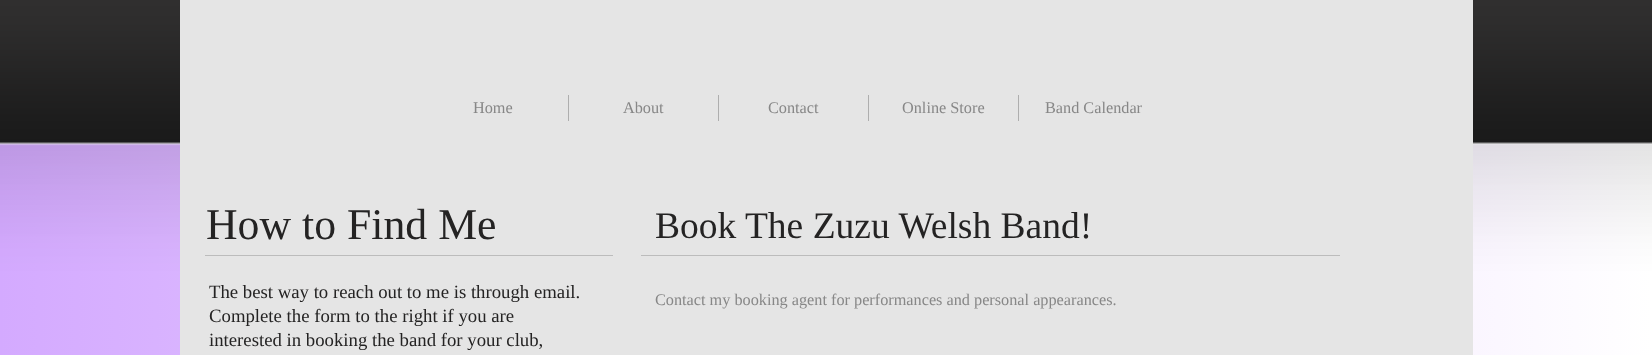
<svg xmlns="http://www.w3.org/2000/svg" width="1652" height="355">
<style>
.a{font:16.25px Liberation Serif;fill:#878787}
.b{font:43.75px Liberation Serif;fill:#242323}
.c{font:37.5px Liberation Serif;fill:#242323}
.d{font:18.75px Liberation Serif;fill:#242323}
</style>
<rect width="100%" height="100%" fill="#fff"/>
<image href="1.png" x="0" y="0" width="1652" height="355"/>
<path fill="#e5e5e5" d="M180 0h1293v355H180z"/>
<path fill="#aeaeae" d="M568 95h1v26H568z"/>
<path fill="#aeaeae" d="M718 95h1v26H718z"/>
<path fill="#aeaeae" d="M868 95h1v26H868z"/>
<path fill="#aeaeae" d="M1018 95h1v26H1018z"/>
<path fill="#bcbcbc" d="M205 255h408v1H205z"/>
<path fill="#bcbcbc" d="M641 255h699v1H641z"/>
<text class="a" x="473" y="113">Home</text>
<text class="a" x="623" y="113">About</text>
<text class="a" x="768" y="113">Contact</text>
<text class="a" x="902" y="113">Online Store</text>
<text class="a" x="1045" y="113">Band Calendar</text>
<text class="b" x="206" y="239">How to Find Me</text>
<text class="c" x="655" y="238">Book The Zuzu Welsh Band!</text>
<text class="d" x="209" y="298">The best way to reach out to me is through email.</text>
<text class="d" x="209" y="322">Complete the form to the right if you are</text>
<text class="d" x="209" y="346">interested in booking the band for your club,</text>
<text class="a" x="655" y="305">Contact my booking agent for performances and personal appearances.</text>
</svg>
